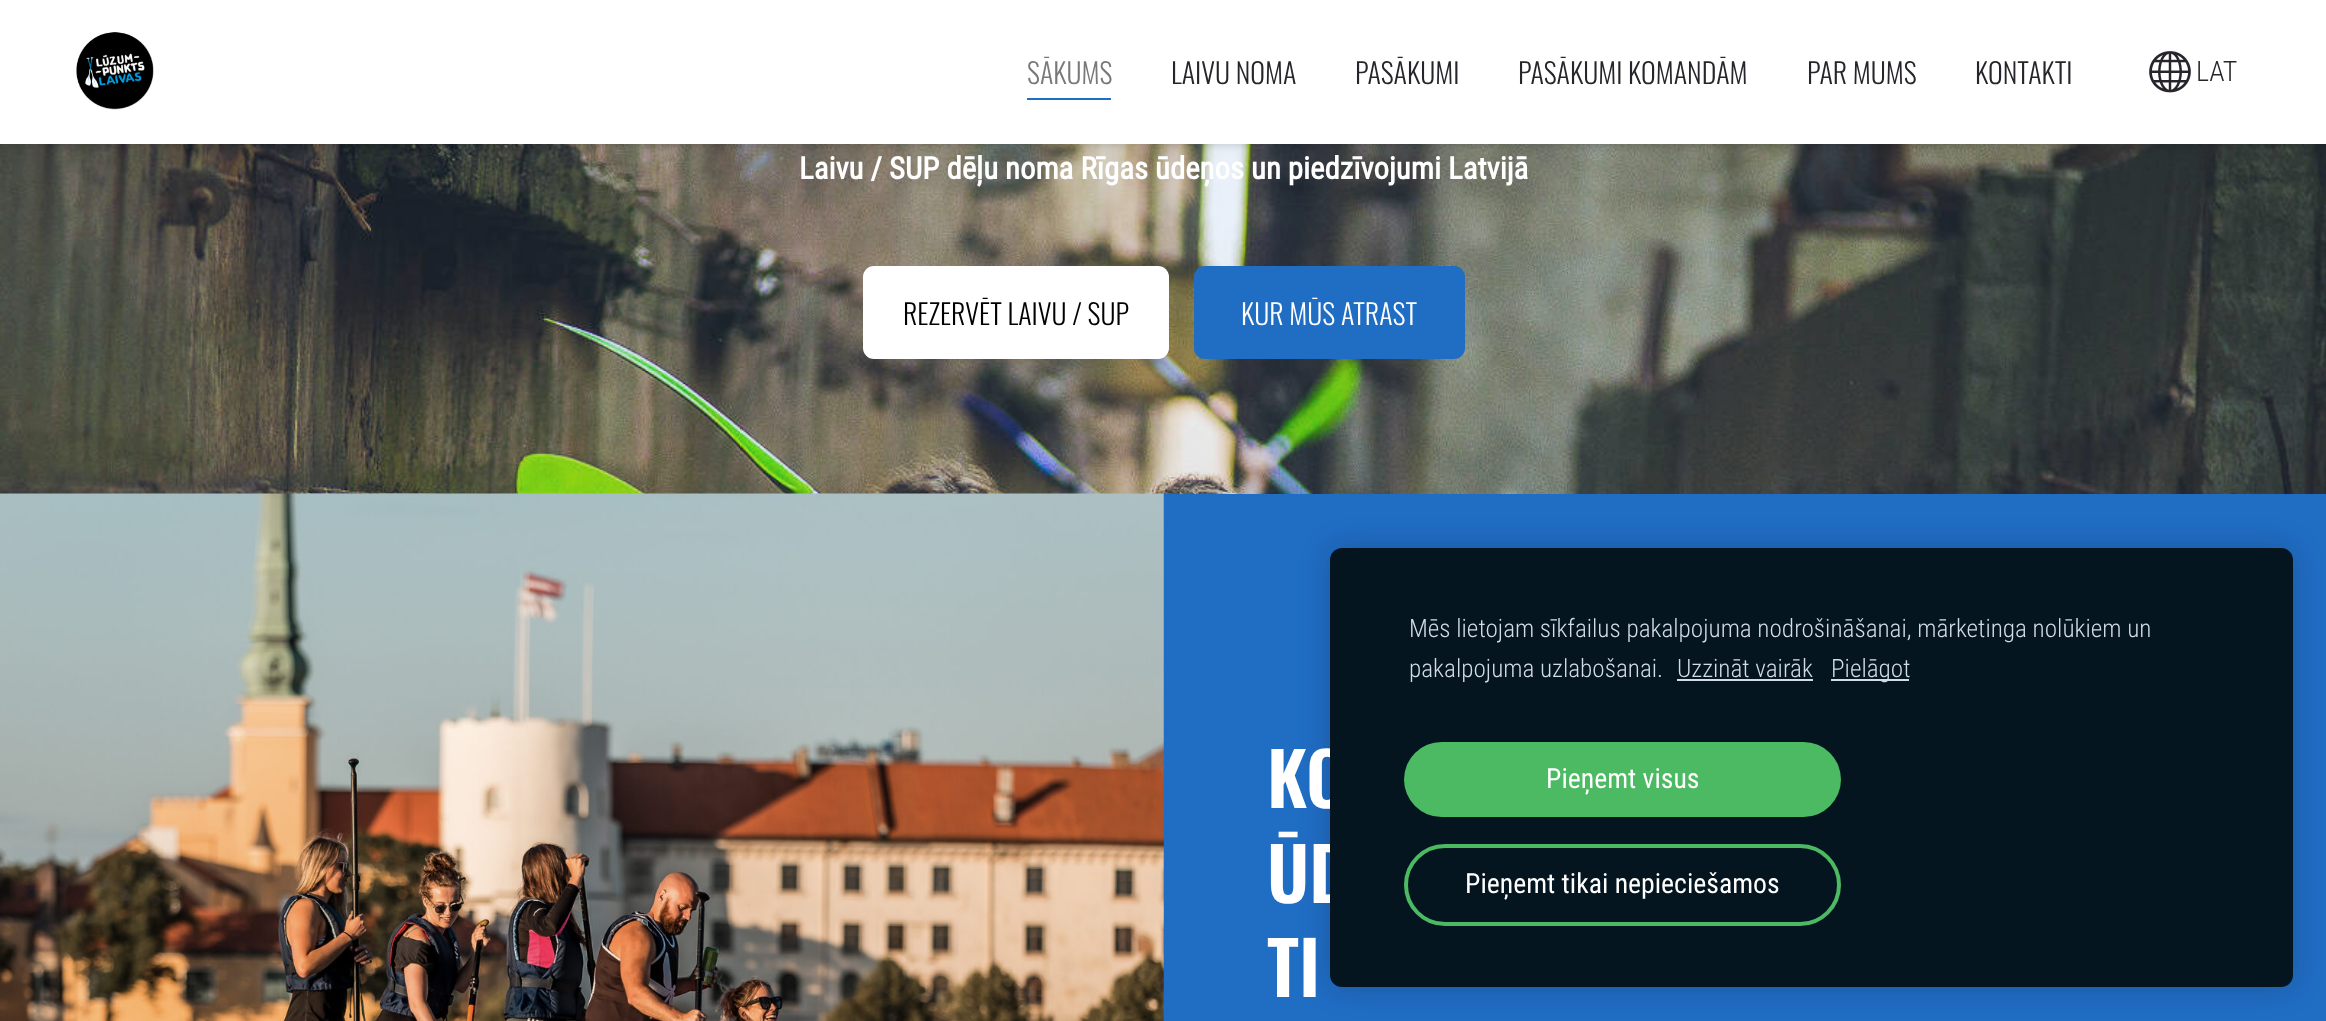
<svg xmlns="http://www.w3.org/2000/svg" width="2326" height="1021">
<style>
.a{font:300 28px Oswald;fill:#797979}
.b{font:300 28px Oswald;fill:#27252b}
.c{font:300 28px Roboto Condensed;fill:#27252b}
.d{font:bold 30.8px Roboto Condensed;fill:#fff}
.e{font:300 28px Oswald;fill:#000}
.f{font:300 28px Oswald;fill:#fff}
.g{font:600 73px Oswald;fill:#fff}
.h{font:300 25.2px Roboto Condensed;fill:#d2dce6}
.i{font:27.75px Roboto Condensed;fill:#fff}
</style>
<rect width="100%" height="100%" fill="#fff"/>
<image href="3.png" x="0" y="144" width="2326" height="350"/>
<path fill="#0000002b" filter="blur(4.5px)" d="M0 2h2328v143H0z"/>
<path fill="#fff" d="M0 0h2326v144H0z"/>
<image href="1.png" x="76" y="32" width="78" height="78"/>
<path fill="#206dc4" d="M1027 98h84v2H1027z"/>
<image href="2.png" x="2149" y="51" width="42" height="42"/>
<rect fill="#fff" x="863" y="266" width="306" height="93" rx="11"/>
<rect fill="#206dc4" x="1194" y="266" width="271" height="93" rx="11"/>
<path fill="#206dc4" d="M1163 494h1163v527H1163z"/>
<image href="4.png" x="0" y="493" width="1164" height="528"/>
<rect fill="#00000033" filter="blur(15px)" x="1330" y="548" width="963" height="439" rx="12"/>
<text class="a" x="1027" y="84">SĀKUMS</text>
<text class="b" x="1171" y="84">LAIVU NOMA</text>
<text class="b" x="1355" y="84">PASĀKUMI</text>
<text class="b" x="1518" y="84">PASĀKUMI KOMANDĀM</text>
<text class="b" x="1807" y="84">PAR MUMS</text>
<text class="b" x="1975" y="84">KONTAKTI</text>
<text class="c" x="2196" y="81">LAT</text>
<text class="d" x="799" y="179">Laivu / SUP dēļu noma Rīgas ūdeņos un piedzīvojumi Latvijā</text>
<text class="e" x="903" y="325">REZERVĒT LAIVU / SUP</text>
<text class="f" x="1241" y="325">KUR MŪS ATRAST</text>
<text class="g" x="1267" y="808">KO</text>
<text class="g" x="1267" y="903">ŪD</text>
<text class="g" x="1267" y="997">TI</text>
<rect fill="#04151f" x="1330" y="548" width="963" height="439" rx="12"/>
<text class="h" x="1409" y="637">Mēs lietojam sīkfailus pakalpojuma nodrošināšanai, mārketinga nolūkiem un</text>
<text class="h" x="1409" y="677">pakalpojuma uzlabošanai.</text>
<text class="h" x="1677" y="677">Uzzināt vairāk</text>
<path fill="#d2dce6" d="M1677 679h136v2H1677z"/>
<path fill="#d2dce6" d="M1831 679h78v2H1831z"/>
<text class="h" x="1831" y="677">Pielāgot</text>
<rect fill="#4cb963" x="1404" y="742" width="437" height="75" rx="37.5"/>
<text class="i" x="1546" y="788">Pieņemt visus</text>
<rect fill="none" stroke="#4cb963" stroke-width="4" x="1406" y="846" width="433" height="78" rx="39"/>
<text class="i" x="1465" y="893">Pieņemt tikai nepieciešamos</text>
</svg>
